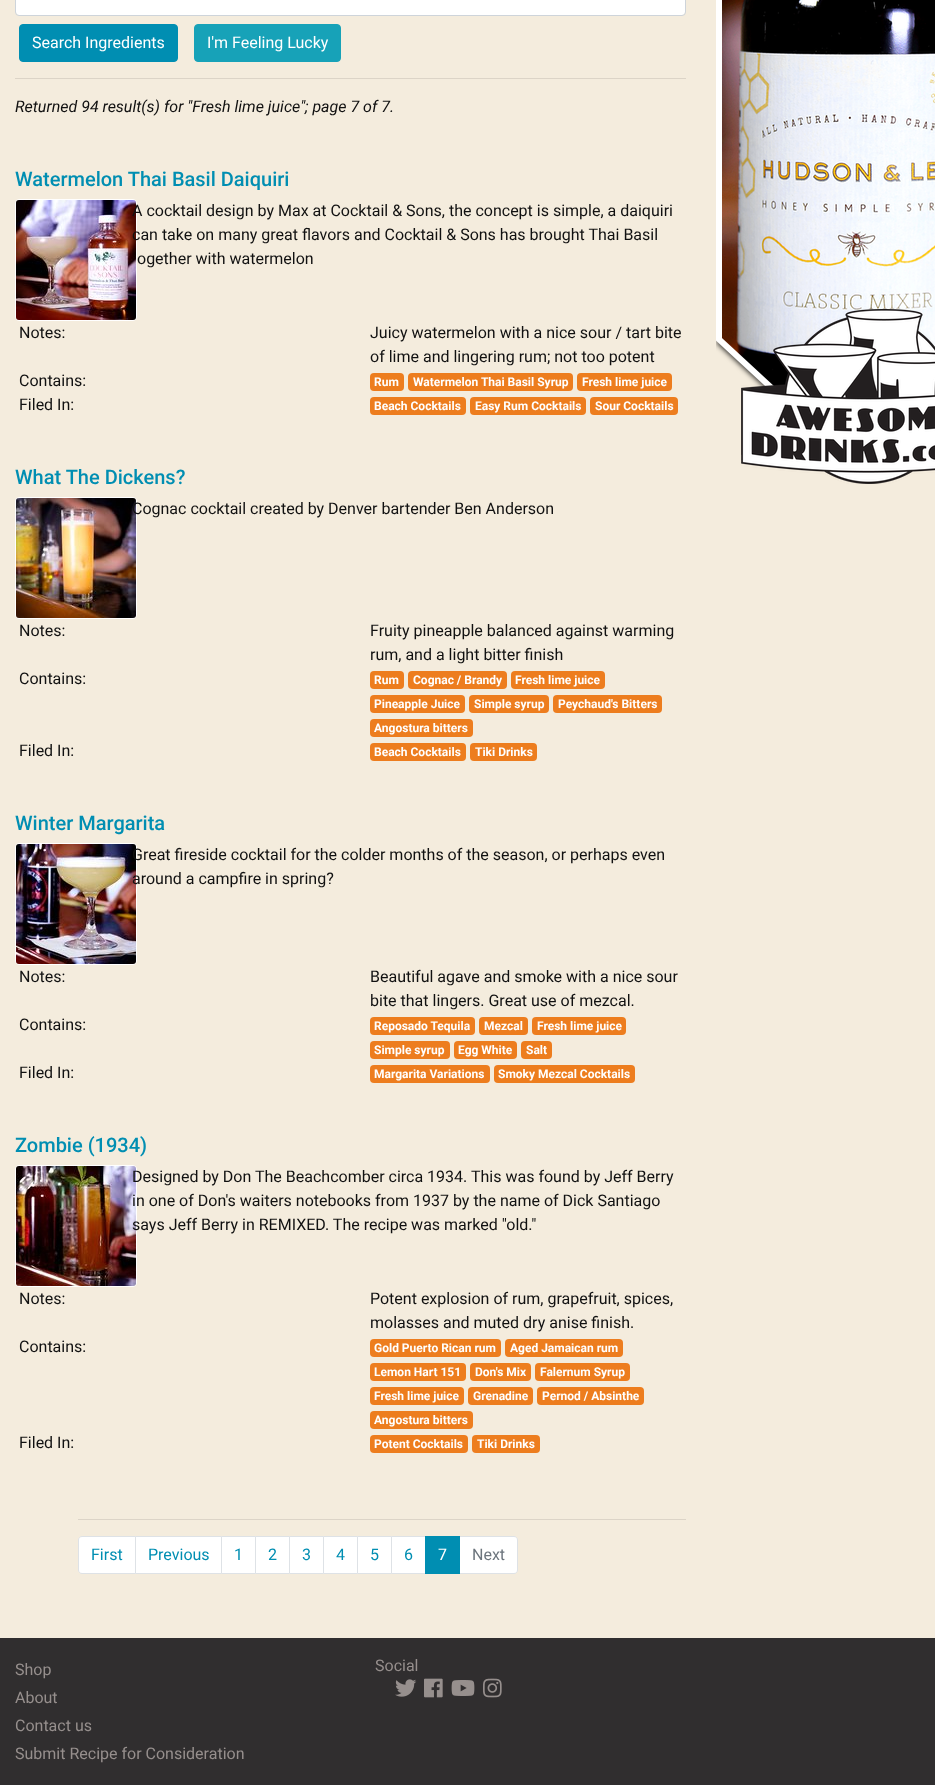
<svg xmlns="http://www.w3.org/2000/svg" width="935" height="1785">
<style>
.a{font:16px Roboto;fill:#fff}
.b{font:italic 16px Roboto;fill:#111}
.c{font:500 20px Roboto;fill:#008eb2}
.d{font:16px Roboto;fill:#111}
.e{font:bold 12px Roboto;fill:#fff}
.f{font:16px Roboto;fill:#008eb2}
.g{font:16px Roboto;fill:#6c757d}
.h{font:16px Roboto;fill:#968f8d}
</style>
<rect width="100%" height="100%" fill="#f4ecdd"/>
<rect fill="#fff" x="16" y="-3" width="669" height="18" rx="3"/>
<rect fill="none" stroke="#ced4da" x="15.5" y="-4.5" width="670" height="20" rx="3.5"/>
<rect fill="#008eb2" stroke="#008eb2" x="19.5" y="24.5" width="158" height="37" rx="3.5"/>
<rect fill="#17a2b8" stroke="#17a2b8" x="194.5" y="24.5" width="146" height="37" rx="3.5"/>
<path fill="#dcd4c7" d="M15 78h671v1H15z"/>
<rect fill="none" stroke="#fff" x="15.5" y="199.5" width="121" height="121" rx="3.5"/>
<image href="1.png" x="16" y="200" width="120" height="120"/>
<rect fill="#ed7d1e" x="370" y="373" width="34" height="18" rx="4"/>
<rect fill="#ed7d1e" x="408" y="373" width="165" height="18" rx="4"/>
<rect fill="#ed7d1e" x="577" y="373" width="95" height="18" rx="4"/>
<rect fill="#ed7d1e" x="370" y="397" width="96" height="18" rx="4"/>
<rect fill="#ed7d1e" x="470" y="397" width="116" height="18" rx="4"/>
<rect fill="#ed7d1e" x="590" y="397" width="88" height="18" rx="4"/>
<rect fill="none" stroke="#fff" x="15.5" y="497.5" width="121" height="121" rx="3.5"/>
<image href="2.png" x="16" y="498" width="120" height="120"/>
<rect fill="#ed7d1e" x="370" y="671" width="34" height="18" rx="4"/>
<rect fill="#ed7d1e" x="408" y="671" width="99" height="18" rx="4"/>
<rect fill="#ed7d1e" x="511" y="671" width="94" height="18" rx="4"/>
<rect fill="#ed7d1e" x="370" y="695" width="95" height="18" rx="4"/>
<rect fill="#ed7d1e" x="469" y="695" width="80" height="18" rx="4"/>
<rect fill="#ed7d1e" x="553" y="695" width="109" height="18" rx="4"/>
<rect fill="#ed7d1e" x="370" y="719" width="103" height="18" rx="4"/>
<rect fill="#ed7d1e" x="370" y="743" width="96" height="18" rx="4"/>
<rect fill="#ed7d1e" x="470" y="743" width="67" height="18" rx="4"/>
<rect fill="none" stroke="#fff" x="15.5" y="843.5" width="121" height="121" rx="3.5"/>
<image href="3.png" x="16" y="844" width="120" height="120"/>
<rect fill="#ed7d1e" x="370" y="1017" width="105" height="18" rx="4"/>
<rect fill="#ed7d1e" x="479" y="1017" width="49" height="18" rx="4"/>
<rect fill="#ed7d1e" x="532" y="1017" width="94" height="18" rx="4"/>
<rect fill="#ed7d1e" x="370" y="1041" width="80" height="18" rx="4"/>
<rect fill="#ed7d1e" x="454" y="1041" width="63" height="18" rx="4"/>
<rect fill="#ed7d1e" x="521" y="1041" width="31" height="18" rx="4"/>
<rect fill="#ed7d1e" x="370" y="1065" width="120" height="18" rx="4"/>
<rect fill="#ed7d1e" x="494" y="1065" width="141" height="18" rx="4"/>
<rect fill="none" stroke="#fff" x="15.5" y="1165.5" width="121" height="121" rx="3.5"/>
<image href="4.png" x="16" y="1166" width="120" height="120"/>
<rect fill="#ed7d1e" x="370" y="1339" width="131" height="18" rx="4"/>
<rect fill="#ed7d1e" x="505" y="1339" width="118" height="18" rx="4"/>
<rect fill="#ed7d1e" x="370" y="1363" width="96" height="18" rx="4"/>
<rect fill="#ed7d1e" x="470" y="1363" width="61" height="18" rx="4"/>
<rect fill="#ed7d1e" x="535" y="1363" width="95" height="18" rx="4"/>
<rect fill="#ed7d1e" x="370" y="1387" width="94" height="18" rx="4"/>
<rect fill="#ed7d1e" x="468" y="1387" width="65" height="18" rx="4"/>
<rect fill="#ed7d1e" x="537" y="1387" width="107" height="18" rx="4"/>
<rect fill="#ed7d1e" x="370" y="1411" width="103" height="18" rx="4"/>
<rect fill="#ed7d1e" x="370" y="1435" width="98" height="18" rx="4"/>
<rect fill="#ed7d1e" x="472" y="1435" width="68" height="18" rx="4"/>
<path fill="#dcd4c7" d="M78 1519h608v1H78z"/>
<path fill="#fff" stroke="#dee2e6" d="M82 1536.5h53.5v37h-53.5c-2 0-3.5-1.5-3.5-3.5v-30c0-2 1.5-3.5 3.5-3.5z"/>
<path fill="#fff" stroke="#dee2e6" d="M135.5 1536.5h86v37H135.5z"/>
<path fill="#fff" stroke="#dee2e6" d="M221.5 1536.5h34v37H221.5z"/>
<path fill="#fff" stroke="#dee2e6" d="M255.5 1536.5h34v37H255.5z"/>
<path fill="#fff" stroke="#dee2e6" d="M289.5 1536.5h34v37H289.5z"/>
<path fill="#fff" stroke="#dee2e6" d="M323.5 1536.5h34v37H323.5z"/>
<path fill="#fff" stroke="#dee2e6" d="M357.5 1536.5h34v37H357.5z"/>
<path fill="#fff" stroke="#dee2e6" d="M391.5 1536.5h34v37H391.5z"/>
<path fill="#fff" stroke="#dee2e6" d="M459.5 1536.5h54.5c2 0 3.5 1.5 3.5 3.5v30c0 2-1.5 3.5-3.5 3.5h-54.5z"/>
<path fill="#008eb2" d="M425 1536h35v38H425z"/>
<image href="5.png" x="716" y="0" width="219" height="484"/>
<path fill="#302e2f" d="M0 1638h935v147H0z"/>
<image href="6.png" x="395" y="1679" width="22" height="18"/>
<image href="7.png" x="424" y="1678" width="19" height="20"/>
<image href="8.png" x="451" y="1680" width="24" height="16"/>
<image href="9.png" x="483" y="1678" width="19" height="20"/>
<text class="a" x="32" y="48">Search Ingredients</text>
<text class="a" x="207" y="48">I'm Feeling Lucky</text>
<text class="b" x="15" y="112">Returned 94 result(s) for "Fresh lime juice"; page 7 of 7.</text>
<text class="c" x="15" y="186">Watermelon Thai Basil Daiquiri</text>
<text class="d" x="132" y="216">A cocktail design by Max at Cocktail &amp; Sons, the concept is simple, a daiquiri</text>
<text class="d" x="132" y="240">can take on many great flavors and Cocktail &amp; Sons has brought Thai Basil</text>
<text class="d" x="137" y="264">ogether with watermelon</text>
<text class="d" x="19" y="338">Notes:</text>
<text class="d" x="370" y="338">Juicy watermelon with a nice sour / tart bite</text>
<text class="d" x="370" y="362">of lime and lingering rum; not too potent</text>
<text class="d" x="19" y="386">Contains:</text>
<text class="e" x="374" y="386">Rum</text>
<text class="e" x="413" y="386">Watermelon Thai Basil Syrup</text>
<text class="e" x="582" y="386">Fresh lime juice</text>
<text class="d" x="19" y="410">Filed In:</text>
<text class="e" x="374" y="410">Beach Cocktails</text>
<text class="e" x="475" y="410">Easy Rum Cocktails</text>
<text class="e" x="595" y="410">Sour Cocktails</text>
<text class="c" x="15" y="484">What The Dickens?</text>
<text class="d" x="132" y="514">Cognac cocktail created by Denver bartender Ben Anderson</text>
<text class="d" x="19" y="636">Notes:</text>
<text class="d" x="370" y="636">Fruity pineapple balanced against warming</text>
<text class="d" x="370" y="660">rum, and a light bitter finish</text>
<text class="d" x="19" y="684">Contains:</text>
<text class="e" x="374" y="684">Rum</text>
<text class="e" x="413" y="684">Cognac / Brandy</text>
<text class="e" x="515" y="684">Fresh lime juice</text>
<text class="e" x="374" y="708">Pineapple Juice</text>
<text class="e" x="474" y="708">Simple syrup</text>
<text class="e" x="558" y="708">Peychaud's Bitters</text>
<text class="e" x="374" y="732">Angostura bitters</text>
<text class="d" x="19" y="756">Filed In:</text>
<text class="e" x="374" y="756">Beach Cocktails</text>
<text class="e" x="475" y="756">Tiki Drinks</text>
<text class="c" x="15" y="830">Winter Margarita</text>
<text class="d" x="132" y="860">Great fireside cocktail for the colder months of the season, or perhaps even</text>
<text class="d" x="132" y="884">around a campfire in spring?</text>
<text class="d" x="19" y="982">Notes:</text>
<text class="d" x="370" y="982">Beautiful agave and smoke with a nice sour</text>
<text class="d" x="370" y="1006">bite that lingers. Great use of mezcal.</text>
<text class="d" x="19" y="1030">Contains:</text>
<text class="e" x="374" y="1030">Reposado Tequila</text>
<text class="e" x="484" y="1030">Mezcal</text>
<text class="e" x="537" y="1030">Fresh lime juice</text>
<text class="e" x="374" y="1054">Simple syrup</text>
<text class="e" x="458" y="1054">Egg White</text>
<text class="e" x="526" y="1054">Salt</text>
<text class="d" x="19" y="1078">Filed In:</text>
<text class="e" x="374" y="1078">Margarita Variations</text>
<text class="e" x="498" y="1078">Smoky Mezcal Cocktails</text>
<text class="c" x="15" y="1152">Zombie (1934)</text>
<text class="d" x="132" y="1182">Designed by Don The Beachcomber circa 1934. This was found by Jeff Berry</text>
<text class="d" x="132" y="1206">in one of Don's waiters notebooks from 1937 by the name of Dick Santiago</text>
<text class="d" x="132" y="1230">says Jeff Berry in REMIXED. The recipe was marked "old."</text>
<text class="d" x="19" y="1304">Notes:</text>
<text class="d" x="370" y="1304">Potent explosion of rum, grapefruit, spices,</text>
<text class="d" x="370" y="1328">molasses and muted dry anise finish.</text>
<text class="d" x="19" y="1352">Contains:</text>
<text class="e" x="374" y="1352">Gold Puerto Rican rum</text>
<text class="e" x="510" y="1352">Aged Jamaican rum</text>
<text class="e" x="374" y="1376">Lemon Hart 151</text>
<text class="e" x="475" y="1376">Don's Mix</text>
<text class="e" x="540" y="1376">Falernum Syrup</text>
<text class="e" x="374" y="1400">Fresh lime juice</text>
<text class="e" x="473" y="1400">Grenadine</text>
<text class="e" x="542" y="1400">Pernod / Absinthe</text>
<text class="e" x="374" y="1424">Angostura bitters</text>
<text class="d" x="19" y="1448">Filed In:</text>
<text class="e" x="374" y="1448">Potent Cocktails</text>
<text class="e" x="477" y="1448">Tiki Drinks</text>
<text class="f" x="91" y="1560">First</text>
<text class="f" x="148" y="1560">Previous</text>
<text class="f" x="234" y="1560">1</text>
<text class="f" x="268" y="1560">2</text>
<text class="f" x="302" y="1560">3</text>
<text class="f" x="336" y="1560">4</text>
<text class="f" x="370" y="1560">5</text>
<text class="f" x="404" y="1560">6</text>
<text class="a" x="438" y="1560">7</text>
<text class="g" x="472" y="1560">Next</text>
<text class="h" x="15" y="1675">Shop</text>
<text class="h" x="15" y="1703">About</text>
<text class="h" x="15" y="1731">Contact us</text>
<text class="h" x="15" y="1759">Submit Recipe for Consideration</text>
<text class="h" x="375" y="1671">Social</text>
</svg>
